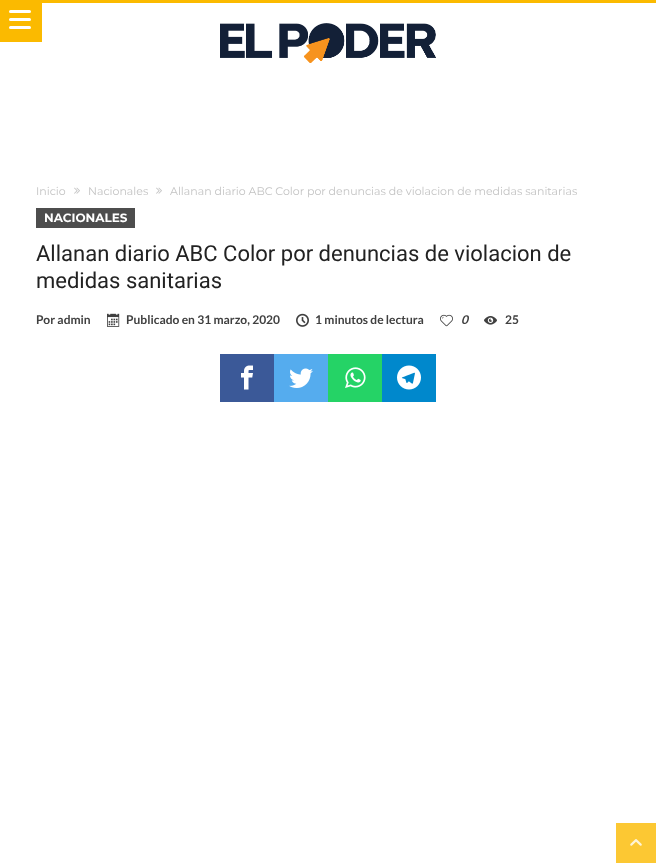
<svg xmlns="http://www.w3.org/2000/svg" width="656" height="863">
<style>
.a{font:11px Montserrat;fill:#c3c3c3}
.b{font:bold 12px Montserrat;fill:#fff}
.c{font:22px Roboto;fill:#222}
.d{font:bold 12px Lato;fill:#404040}
.e{font:italic bold 12px Lato;fill:#404040}
</style>
<rect width="100%" height="100%" fill="#fff"/>
<path fill="#fbba00" d="M42 0h614v3H42z"/>
<path fill="#fbba00" d="M0 0h42v42H0z"/>
<rect fill="#fff" x="9" y="10" width="22" height="3" rx="1.5"/>
<rect fill="#fff" x="9" y="18" width="22" height="3" rx="1.5"/>
<rect fill="#fff" x="9" y="26" width="22" height="3" rx="1.5"/>
<image href="1.png" x="220" y="23" width="216" height="40"/>
<image href="2.png" x="74" y="187" width="6" height="7"/>
<image href="2.png" x="156" y="187" width="6" height="7"/>
<path fill="#4d4d4d" d="M36 208h99v20H36z"/>
<image href="3.png" x="107" y="313" width="13" height="14"/>
<image href="4.png" x="296" y="313" width="13" height="14"/>
<image href="5.png" x="440" y="314" width="13" height="13"/>
<image href="6.png" x="484" y="316" width="13" height="9"/>
<path fill="#3b5998" d="M220 354h54v48H220z"/>
<image href="7.png" x="241" y="365" width="12" height="25"/>
<path fill="#55acee" d="M274 354h54v48H274z"/>
<image href="8.png" x="289" y="368" width="24" height="20"/>
<path fill="#25d366" d="M328 354h54v48H328z"/>
<image href="9.png" x="345" y="367" width="21" height="21"/>
<path fill="#08c" d="M382 354h54v48H382z"/>
<image href="10.png" x="397" y="365" width="24" height="25"/>
<path fill="#fcc833" d="M616 823h40v40H616z"/>
<image href="11.png" x="630" y="839" width="12" height="7"/>
<text class="a" x="36" y="195">Inicio</text>
<text class="a" x="88" y="195">Nacionales</text>
<text class="a" x="170" y="195">Allanan diario ABC Color por denuncias de violacion de medidas sanitarias</text>
<text class="b" x="44" y="222">NACIONALES</text>
<text class="c" x="36" y="261">Allanan diario ABC Color por denuncias de violacion de</text>
<text class="c" x="36" y="288">medidas sanitarias</text>
<text class="d" x="36" y="324">Por admin</text>
<text class="d" x="126" y="324">Publicado en 31 marzo, 2020</text>
<text class="d" x="315" y="324">1 minutos de lectura</text>
<text class="e" x="461" y="324">0</text>
<text class="d" x="505" y="324">25</text>
</svg>
